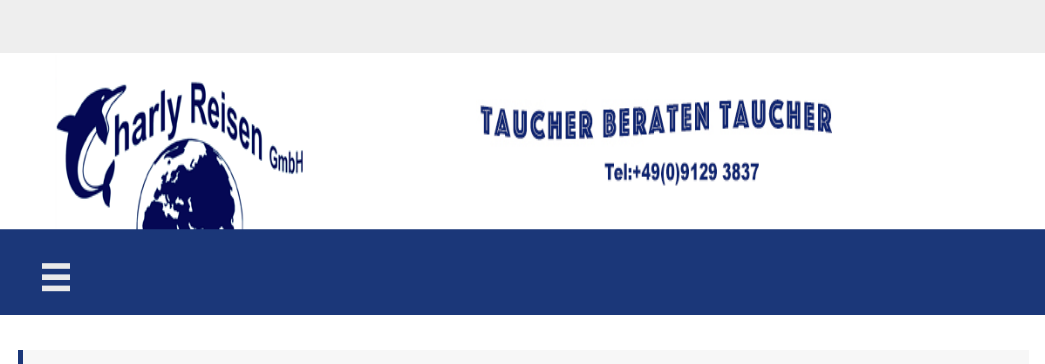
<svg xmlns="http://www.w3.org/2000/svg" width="1045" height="364">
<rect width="100%" height="100%" fill="#1b3779"/>
<path fill="#eee" d="M0 0h1045v53H0z"/>
<path fill="#fff" d="M0 53h1045v2H0z"/>
<image href="1.png" x="0" y="55" width="1045" height="175"/>
<image href="2.png" x="42" y="263" width="28" height="29"/>
<path fill="#fff" d="M0 315h1045v49H0z"/>
<path fill="#f7f7f7" d="M23 350h1006v14H23z"/>
<path fill="#1b3779" d="M18 350h5v14H18z"/>
</svg>
